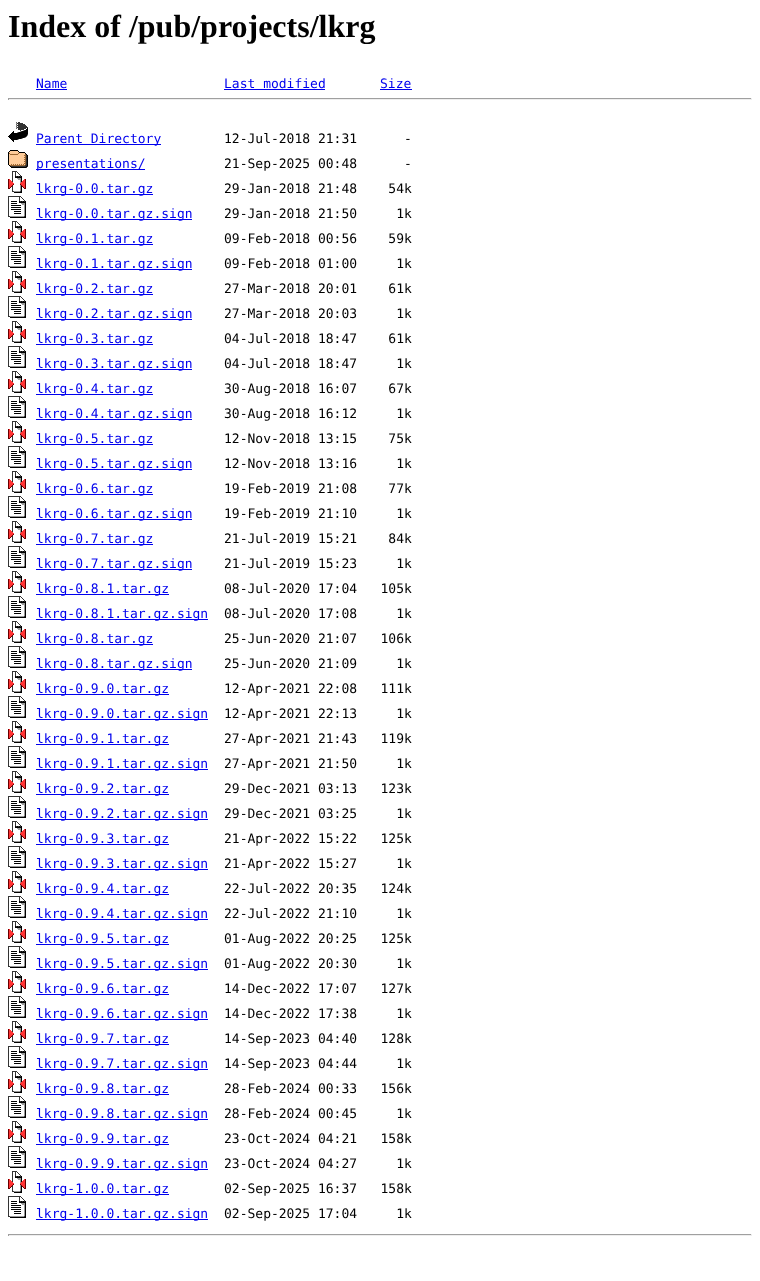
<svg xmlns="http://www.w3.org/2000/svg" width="760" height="1281">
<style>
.a{font:bold 32px Liberation Serif;fill:#000}
.b{font:13px DejaVu Sans Mono;fill:#00e}
.c{font:13px DejaVu Sans Mono;fill:#000}
</style>
<rect width="100%" height="100%" fill="#fff"/>
<path fill="#00e" d="M36 89h31v1H36z"/>
<path fill="#00e" d="M224 89h101v1H224z"/>
<path fill="#00e" d="M380 89h32v1H380z"/>
<path fill="#9f9f9f" d="M8 98h744v1H8z"/>
<path fill="#eee" d="M751 98h1v2H751z"/>
<path fill="#eee" d="M8 99h744v1H8z"/>
<path fill="#9f9f9f" d="M8 98h1v2H8z"/>
<image href="1.png" x="8" y="122" width="20" height="20"/>
<path fill="#00e" d="M36 144h125v1H36z"/>
<image href="2.png" x="8" y="150" width="20" height="18"/>
<path fill="#00e" d="M36 169h109v1H36z"/>
<image href="3.png" x="8" y="171" width="18" height="22"/>
<path fill="#00e" d="M36 194h117v1H36z"/>
<image href="4.png" x="8" y="196" width="18" height="22"/>
<path fill="#00e" d="M36 219h156v1H36z"/>
<image href="3.png" x="8" y="221" width="18" height="22"/>
<path fill="#00e" d="M36 244h117v1H36z"/>
<image href="4.png" x="8" y="246" width="18" height="22"/>
<path fill="#00e" d="M36 269h156v1H36z"/>
<image href="3.png" x="8" y="271" width="18" height="22"/>
<path fill="#00e" d="M36 294h117v1H36z"/>
<image href="4.png" x="8" y="296" width="18" height="22"/>
<path fill="#00e" d="M36 319h156v1H36z"/>
<image href="3.png" x="8" y="321" width="18" height="22"/>
<path fill="#00e" d="M36 344h117v1H36z"/>
<image href="4.png" x="8" y="346" width="18" height="22"/>
<path fill="#00e" d="M36 369h156v1H36z"/>
<image href="3.png" x="8" y="371" width="18" height="22"/>
<path fill="#00e" d="M36 394h117v1H36z"/>
<image href="4.png" x="8" y="396" width="18" height="22"/>
<path fill="#00e" d="M36 419h156v1H36z"/>
<image href="3.png" x="8" y="421" width="18" height="22"/>
<path fill="#00e" d="M36 444h117v1H36z"/>
<image href="4.png" x="8" y="446" width="18" height="22"/>
<path fill="#00e" d="M36 469h156v1H36z"/>
<image href="3.png" x="8" y="471" width="18" height="22"/>
<path fill="#00e" d="M36 494h117v1H36z"/>
<image href="4.png" x="8" y="496" width="18" height="22"/>
<path fill="#00e" d="M36 519h156v1H36z"/>
<image href="3.png" x="8" y="521" width="18" height="22"/>
<path fill="#00e" d="M36 544h117v1H36z"/>
<image href="4.png" x="8" y="546" width="18" height="22"/>
<path fill="#00e" d="M36 569h156v1H36z"/>
<image href="3.png" x="8" y="571" width="18" height="22"/>
<path fill="#00e" d="M36 594h133v1H36z"/>
<image href="4.png" x="8" y="596" width="18" height="22"/>
<path fill="#00e" d="M36 619h172v1H36z"/>
<image href="3.png" x="8" y="621" width="18" height="22"/>
<path fill="#00e" d="M36 644h117v1H36z"/>
<image href="4.png" x="8" y="646" width="18" height="22"/>
<path fill="#00e" d="M36 669h156v1H36z"/>
<image href="3.png" x="8" y="671" width="18" height="22"/>
<path fill="#00e" d="M36 694h133v1H36z"/>
<image href="4.png" x="8" y="696" width="18" height="22"/>
<path fill="#00e" d="M36 719h172v1H36z"/>
<image href="3.png" x="8" y="721" width="18" height="22"/>
<path fill="#00e" d="M36 744h133v1H36z"/>
<image href="4.png" x="8" y="746" width="18" height="22"/>
<path fill="#00e" d="M36 769h172v1H36z"/>
<image href="3.png" x="8" y="771" width="18" height="22"/>
<path fill="#00e" d="M36 794h133v1H36z"/>
<image href="4.png" x="8" y="796" width="18" height="22"/>
<path fill="#00e" d="M36 819h172v1H36z"/>
<image href="3.png" x="8" y="821" width="18" height="22"/>
<path fill="#00e" d="M36 844h133v1H36z"/>
<image href="4.png" x="8" y="846" width="18" height="22"/>
<path fill="#00e" d="M36 869h172v1H36z"/>
<image href="3.png" x="8" y="871" width="18" height="22"/>
<path fill="#00e" d="M36 894h133v1H36z"/>
<image href="4.png" x="8" y="896" width="18" height="22"/>
<path fill="#00e" d="M36 919h172v1H36z"/>
<image href="3.png" x="8" y="921" width="18" height="22"/>
<path fill="#00e" d="M36 944h133v1H36z"/>
<image href="4.png" x="8" y="946" width="18" height="22"/>
<path fill="#00e" d="M36 969h172v1H36z"/>
<image href="3.png" x="8" y="971" width="18" height="22"/>
<path fill="#00e" d="M36 994h133v1H36z"/>
<image href="4.png" x="8" y="996" width="18" height="22"/>
<path fill="#00e" d="M36 1019h172v1H36z"/>
<image href="3.png" x="8" y="1021" width="18" height="22"/>
<path fill="#00e" d="M36 1044h133v1H36z"/>
<image href="4.png" x="8" y="1046" width="18" height="22"/>
<path fill="#00e" d="M36 1069h172v1H36z"/>
<image href="3.png" x="8" y="1071" width="18" height="22"/>
<path fill="#00e" d="M36 1094h133v1H36z"/>
<image href="4.png" x="8" y="1096" width="18" height="22"/>
<path fill="#00e" d="M36 1119h172v1H36z"/>
<image href="3.png" x="8" y="1121" width="18" height="22"/>
<path fill="#00e" d="M36 1144h133v1H36z"/>
<image href="4.png" x="8" y="1146" width="18" height="22"/>
<path fill="#00e" d="M36 1169h172v1H36z"/>
<image href="3.png" x="8" y="1171" width="18" height="22"/>
<path fill="#00e" d="M36 1194h133v1H36z"/>
<image href="4.png" x="8" y="1196" width="18" height="22"/>
<path fill="#00e" d="M36 1219h172v1H36z"/>
<path fill="#9f9f9f" d="M8 1234h744v1H8z"/>
<path fill="#eee" d="M751 1234h1v2H751z"/>
<path fill="#eee" d="M8 1235h744v1H8z"/>
<path fill="#9f9f9f" d="M8 1234h1v2H8z"/>
<text class="a" x="8" y="37">Index of /pub/projects/lkrg</text>
<text class="b" x="36" y="88">Name</text>
<text class="b" x="224" y="88">Last modified</text>
<text class="b" x="380" y="88">Size</text>
<text class="b" x="36" y="143">Parent Directory</text>
<text class="c" xml:space="preserve" x="224" y="143">12-Jul-2018 21:31      -</text>
<text class="b" x="36" y="168">presentations/</text>
<text class="c" xml:space="preserve" x="224" y="168">21-Sep-2025 00:48      -</text>
<text class="b" x="36" y="193">lkrg-0.0.tar.gz</text>
<text class="c" xml:space="preserve" x="224" y="193">29-Jan-2018 21:48    54k</text>
<text class="b" x="36" y="218">lkrg-0.0.tar.gz.sign</text>
<text class="c" xml:space="preserve" x="224" y="218">29-Jan-2018 21:50     1k</text>
<text class="b" x="36" y="243">lkrg-0.1.tar.gz</text>
<text class="c" xml:space="preserve" x="224" y="243">09-Feb-2018 00:56    59k</text>
<text class="b" x="36" y="268">lkrg-0.1.tar.gz.sign</text>
<text class="c" xml:space="preserve" x="224" y="268">09-Feb-2018 01:00     1k</text>
<text class="b" x="36" y="293">lkrg-0.2.tar.gz</text>
<text class="c" xml:space="preserve" x="224" y="293">27-Mar-2018 20:01    61k</text>
<text class="b" x="36" y="318">lkrg-0.2.tar.gz.sign</text>
<text class="c" xml:space="preserve" x="224" y="318">27-Mar-2018 20:03     1k</text>
<text class="b" x="36" y="343">lkrg-0.3.tar.gz</text>
<text class="c" xml:space="preserve" x="224" y="343">04-Jul-2018 18:47    61k</text>
<text class="b" x="36" y="368">lkrg-0.3.tar.gz.sign</text>
<text class="c" xml:space="preserve" x="224" y="368">04-Jul-2018 18:47     1k</text>
<text class="b" x="36" y="393">lkrg-0.4.tar.gz</text>
<text class="c" xml:space="preserve" x="224" y="393">30-Aug-2018 16:07    67k</text>
<text class="b" x="36" y="418">lkrg-0.4.tar.gz.sign</text>
<text class="c" xml:space="preserve" x="224" y="418">30-Aug-2018 16:12     1k</text>
<text class="b" x="36" y="443">lkrg-0.5.tar.gz</text>
<text class="c" xml:space="preserve" x="224" y="443">12-Nov-2018 13:15    75k</text>
<text class="b" x="36" y="468">lkrg-0.5.tar.gz.sign</text>
<text class="c" xml:space="preserve" x="224" y="468">12-Nov-2018 13:16     1k</text>
<text class="b" x="36" y="493">lkrg-0.6.tar.gz</text>
<text class="c" xml:space="preserve" x="224" y="493">19-Feb-2019 21:08    77k</text>
<text class="b" x="36" y="518">lkrg-0.6.tar.gz.sign</text>
<text class="c" xml:space="preserve" x="224" y="518">19-Feb-2019 21:10     1k</text>
<text class="b" x="36" y="543">lkrg-0.7.tar.gz</text>
<text class="c" xml:space="preserve" x="224" y="543">21-Jul-2019 15:21    84k</text>
<text class="b" x="36" y="568">lkrg-0.7.tar.gz.sign</text>
<text class="c" xml:space="preserve" x="224" y="568">21-Jul-2019 15:23     1k</text>
<text class="b" x="36" y="593">lkrg-0.8.1.tar.gz</text>
<text class="c" xml:space="preserve" x="224" y="593">08-Jul-2020 17:04   105k</text>
<text class="b" x="36" y="618">lkrg-0.8.1.tar.gz.sign</text>
<text class="c" xml:space="preserve" x="224" y="618">08-Jul-2020 17:08     1k</text>
<text class="b" x="36" y="643">lkrg-0.8.tar.gz</text>
<text class="c" xml:space="preserve" x="224" y="643">25-Jun-2020 21:07   106k</text>
<text class="b" x="36" y="668">lkrg-0.8.tar.gz.sign</text>
<text class="c" xml:space="preserve" x="224" y="668">25-Jun-2020 21:09     1k</text>
<text class="b" x="36" y="693">lkrg-0.9.0.tar.gz</text>
<text class="c" xml:space="preserve" x="224" y="693">12-Apr-2021 22:08   111k</text>
<text class="b" x="36" y="718">lkrg-0.9.0.tar.gz.sign</text>
<text class="c" xml:space="preserve" x="224" y="718">12-Apr-2021 22:13     1k</text>
<text class="b" x="36" y="743">lkrg-0.9.1.tar.gz</text>
<text class="c" xml:space="preserve" x="224" y="743">27-Apr-2021 21:43   119k</text>
<text class="b" x="36" y="768">lkrg-0.9.1.tar.gz.sign</text>
<text class="c" xml:space="preserve" x="224" y="768">27-Apr-2021 21:50     1k</text>
<text class="b" x="36" y="793">lkrg-0.9.2.tar.gz</text>
<text class="c" xml:space="preserve" x="224" y="793">29-Dec-2021 03:13   123k</text>
<text class="b" x="36" y="818">lkrg-0.9.2.tar.gz.sign</text>
<text class="c" xml:space="preserve" x="224" y="818">29-Dec-2021 03:25     1k</text>
<text class="b" x="36" y="843">lkrg-0.9.3.tar.gz</text>
<text class="c" xml:space="preserve" x="224" y="843">21-Apr-2022 15:22   125k</text>
<text class="b" x="36" y="868">lkrg-0.9.3.tar.gz.sign</text>
<text class="c" xml:space="preserve" x="224" y="868">21-Apr-2022 15:27     1k</text>
<text class="b" x="36" y="893">lkrg-0.9.4.tar.gz</text>
<text class="c" xml:space="preserve" x="224" y="893">22-Jul-2022 20:35   124k</text>
<text class="b" x="36" y="918">lkrg-0.9.4.tar.gz.sign</text>
<text class="c" xml:space="preserve" x="224" y="918">22-Jul-2022 21:10     1k</text>
<text class="b" x="36" y="943">lkrg-0.9.5.tar.gz</text>
<text class="c" xml:space="preserve" x="224" y="943">01-Aug-2022 20:25   125k</text>
<text class="b" x="36" y="968">lkrg-0.9.5.tar.gz.sign</text>
<text class="c" xml:space="preserve" x="224" y="968">01-Aug-2022 20:30     1k</text>
<text class="b" x="36" y="993">lkrg-0.9.6.tar.gz</text>
<text class="c" xml:space="preserve" x="224" y="993">14-Dec-2022 17:07   127k</text>
<text class="b" x="36" y="1018">lkrg-0.9.6.tar.gz.sign</text>
<text class="c" xml:space="preserve" x="224" y="1018">14-Dec-2022 17:38     1k</text>
<text class="b" x="36" y="1043">lkrg-0.9.7.tar.gz</text>
<text class="c" xml:space="preserve" x="224" y="1043">14-Sep-2023 04:40   128k</text>
<text class="b" x="36" y="1068">lkrg-0.9.7.tar.gz.sign</text>
<text class="c" xml:space="preserve" x="224" y="1068">14-Sep-2023 04:44     1k</text>
<text class="b" x="36" y="1093">lkrg-0.9.8.tar.gz</text>
<text class="c" xml:space="preserve" x="224" y="1093">28-Feb-2024 00:33   156k</text>
<text class="b" x="36" y="1118">lkrg-0.9.8.tar.gz.sign</text>
<text class="c" xml:space="preserve" x="224" y="1118">28-Feb-2024 00:45     1k</text>
<text class="b" x="36" y="1143">lkrg-0.9.9.tar.gz</text>
<text class="c" xml:space="preserve" x="224" y="1143">23-Oct-2024 04:21   158k</text>
<text class="b" x="36" y="1168">lkrg-0.9.9.tar.gz.sign</text>
<text class="c" xml:space="preserve" x="224" y="1168">23-Oct-2024 04:27     1k</text>
<text class="b" x="36" y="1193">lkrg-1.0.0.tar.gz</text>
<text class="c" xml:space="preserve" x="224" y="1193">02-Sep-2025 16:37   158k</text>
<text class="b" x="36" y="1218">lkrg-1.0.0.tar.gz.sign</text>
<text class="c" xml:space="preserve" x="224" y="1218">02-Sep-2025 17:04     1k</text>
</svg>
